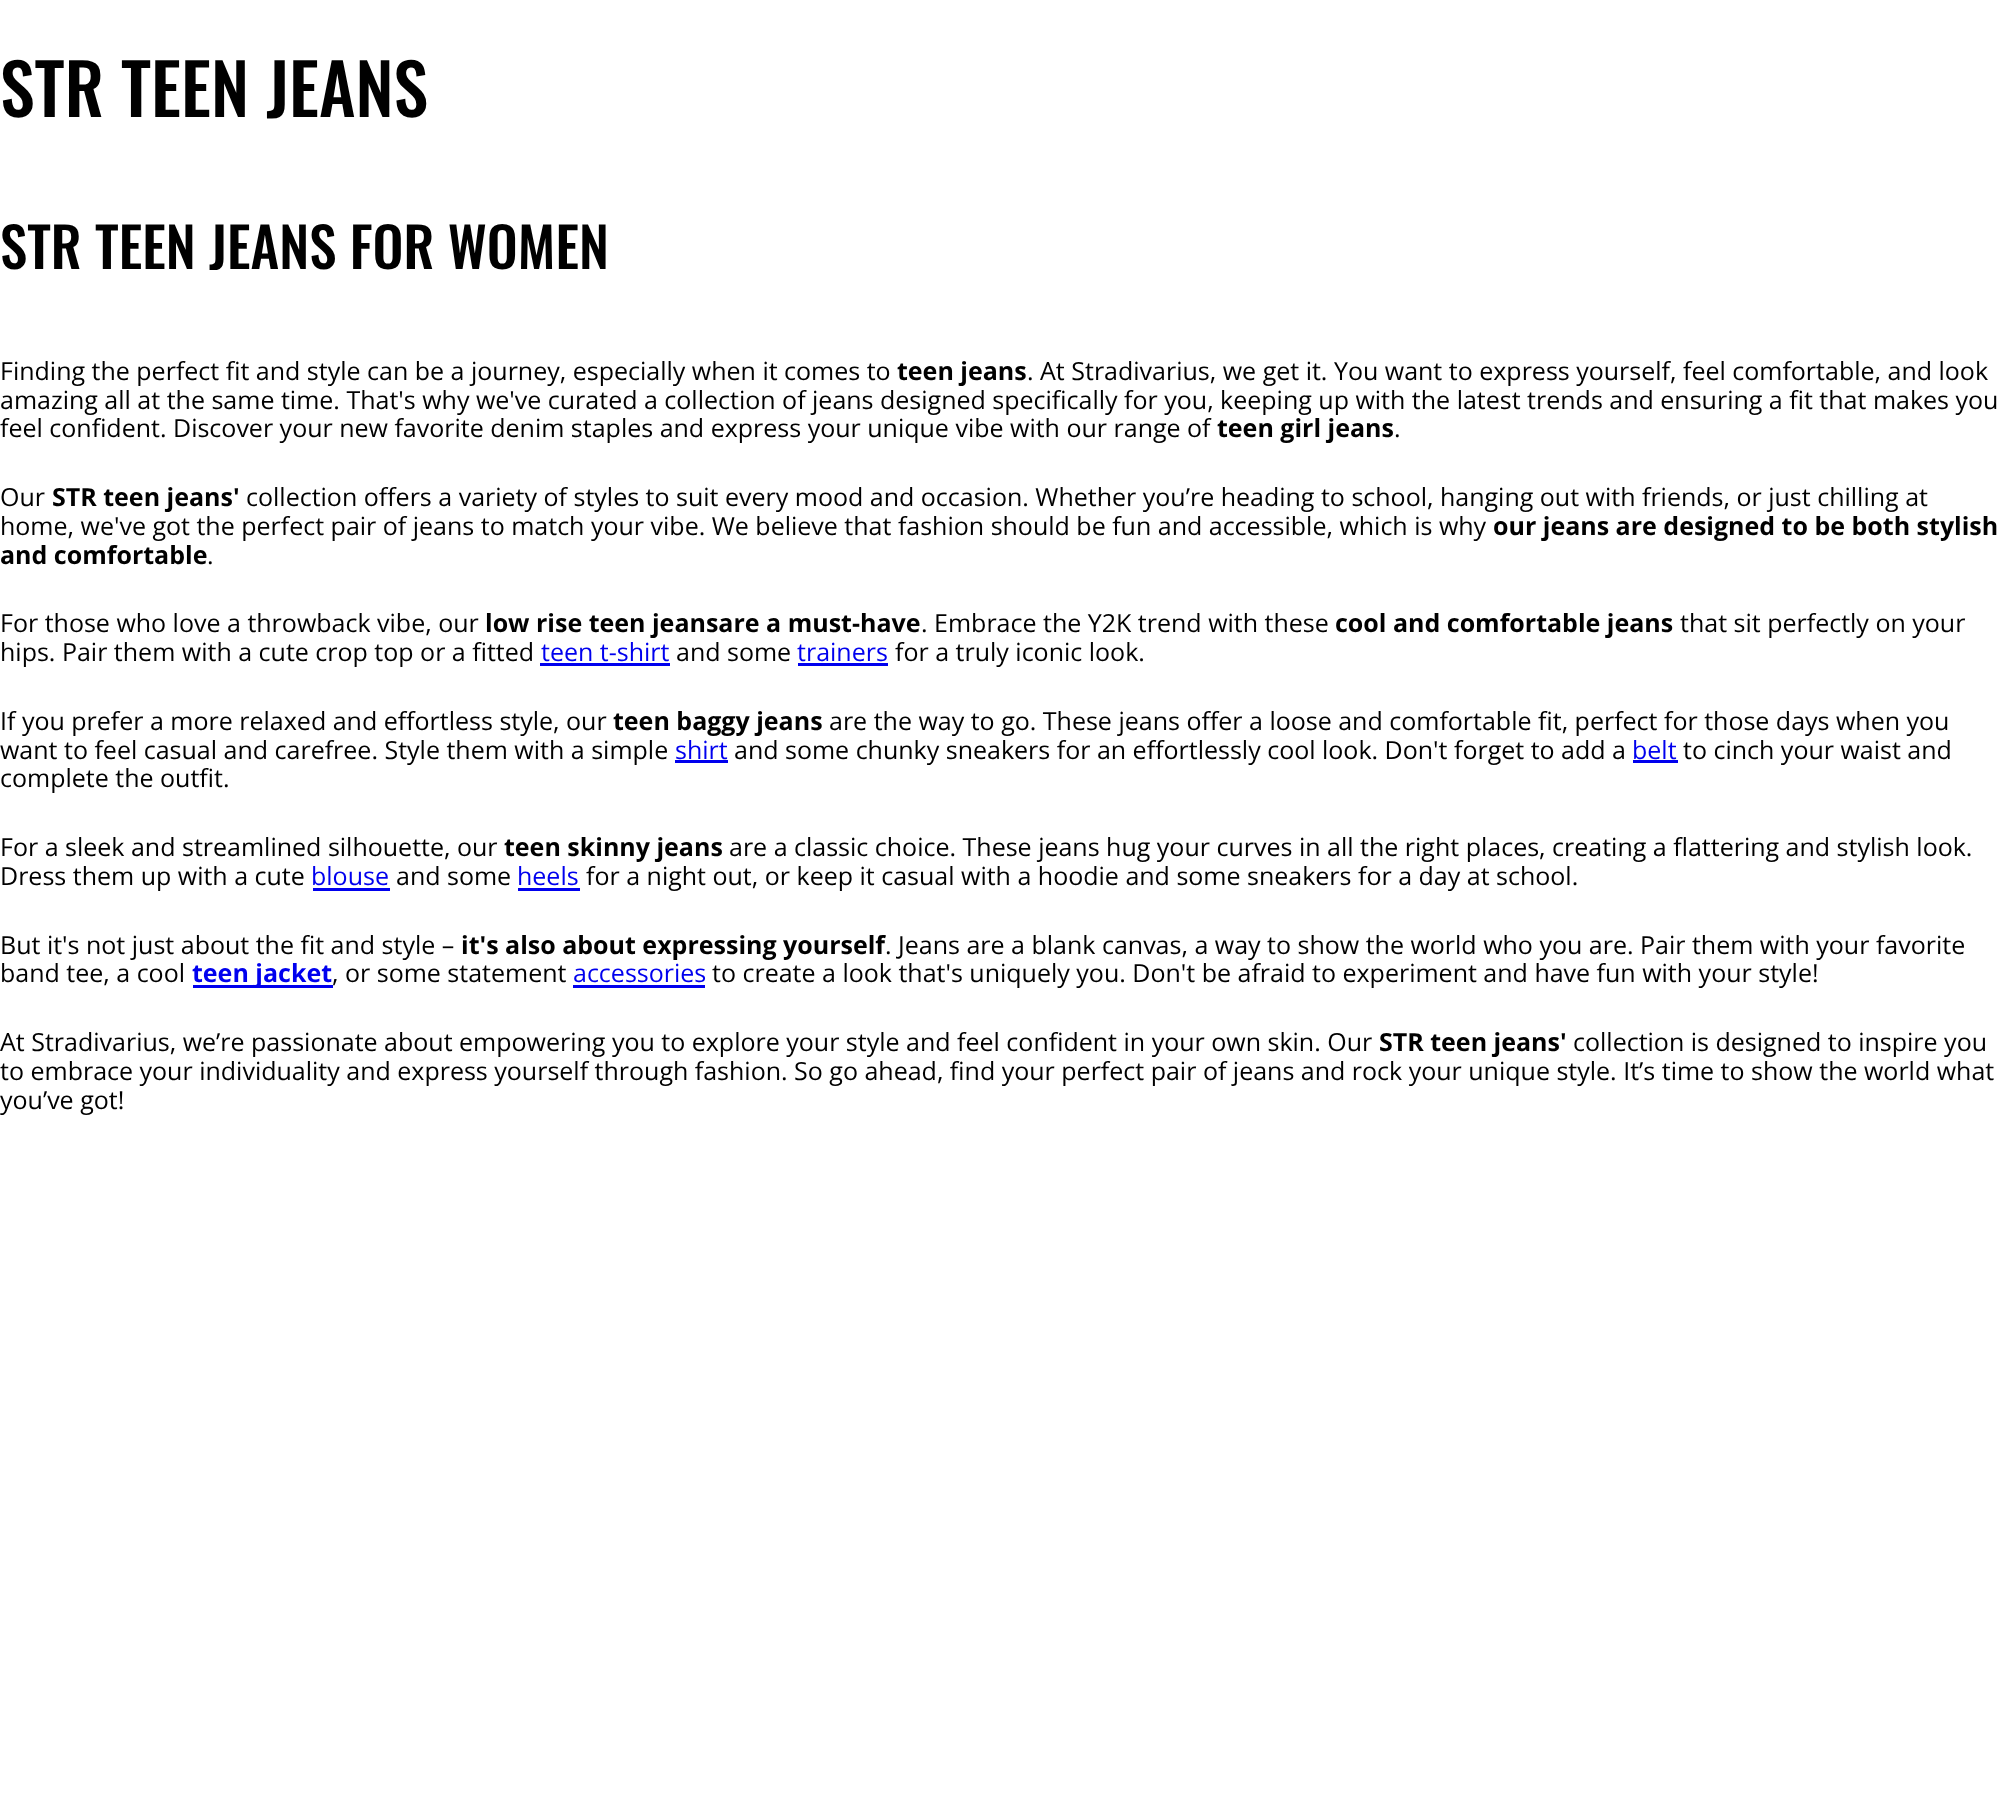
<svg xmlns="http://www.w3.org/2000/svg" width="2002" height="1809">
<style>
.a{font:500 70px Oswald;fill:#000}
.b{font:500 55px Oswald;fill:#000}
.c{font:25px Open Sans;fill:#000}
.d{font:bold 25px Open Sans;fill:#000}
.e{font:25px Open Sans;fill:#00e}
.f{font:bold 25px Open Sans;fill:#00e}
</style>
<rect width="100%" height="100%" fill="#fff"/>
<path fill="#00e" d="M540 663h130v3H540z"/>
<path fill="#00e" d="M798 663h90v3H798z"/>
<path fill="#00e" d="M675 760h53v3H675z"/>
<path fill="#00e" d="M1633 760h45v3H1633z"/>
<path fill="#00e" d="M313 888h77v3H313z"/>
<path fill="#00e" d="M518 888h62v3H518z"/>
<path fill="#00e" d="M193 985h140v3H193z"/>
<path fill="#00e" d="M573 985h132v3H573z"/>
<text class="a" x="0" y="117">STR TEEN JEANS</text>
<text class="b" x="0" y="269">STR TEEN JEANS FOR WOMEN</text>
<text class="c" x="0" y="380">Finding the perfect fit and style can be a journey, especially when it comes to</text>
<text class="d" x="897" y="380">teen jeans</text>
<text class="c" x="1027" y="380">. At Stradivarius, we get it. You want to express yourself, feel comfortable, and look</text>
<text class="c" x="0" y="409">amazing all at the same time. That's why we've curated a collection of jeans designed specifically for you, keeping up with the latest trends and ensuring a fit that makes you</text>
<text class="c" x="0" y="437">feel confident. Discover your new favorite denim staples and express your unique vibe with our range of</text>
<text class="d" x="1217" y="437">teen girl jeans</text>
<text class="c" x="1394" y="437">.</text>
<text class="c" x="0" y="506">Our</text>
<text class="d" x="52" y="506">STR teen jeans'</text>
<text class="c" x="246" y="506">collection offers a variety of styles to suit every mood and occasion. Whether you’re heading to school, hanging out with friends, or just chilling at</text>
<text class="c" x="0" y="535">home, we've got the perfect pair of jeans to match your vibe. We believe that fashion should be fun and accessible, which is why</text>
<text class="d" x="1493" y="535">our jeans are designed to be both stylish</text>
<text class="d" x="0" y="564">and comfortable</text>
<text class="c" x="207" y="564">.</text>
<text class="c" x="0" y="632">For those who love a throwback vibe, our</text>
<text class="d" x="485" y="632">low rise teen jeansare a must-have</text>
<text class="c" x="921" y="632">. Embrace the Y2K trend with these</text>
<text class="d" x="1335" y="632">cool and comfortable jeans</text>
<text class="c" x="1680" y="632">that sit perfectly on your</text>
<text class="c" x="0" y="661">hips. Pair them with a cute crop top or a fitted</text>
<text class="e" x="541" y="661">teen t-shirt</text>
<text class="c" x="676" y="661">and some</text>
<text class="e" x="797" y="661">trainers</text>
<text class="c" x="895" y="661">for a truly iconic look.</text>
<text class="c" x="0" y="730">If you prefer a more relaxed and effortless style, our</text>
<text class="d" x="613" y="730">teen baggy jeans</text>
<text class="c" x="829" y="730">are the way to go. These jeans offer a loose and comfortable fit, perfect for those days when you</text>
<text class="c" x="0" y="759">want to feel casual and carefree. Style them with a simple</text>
<text class="e" x="675" y="759">shirt</text>
<text class="c" x="734" y="759">and some chunky sneakers for an effortlessly cool look. Don't forget to add a</text>
<text class="e" x="1632" y="759">belt</text>
<text class="c" x="1683" y="759">to cinch your waist and</text>
<text class="c" x="0" y="787">complete the outfit.</text>
<text class="c" x="0" y="856">For a sleek and streamlined silhouette, our</text>
<text class="d" x="504" y="856">teen skinny jeans</text>
<text class="c" x="729" y="856">are a classic choice. These jeans hug your curves in all the right places, creating a flattering and stylish look.</text>
<text class="c" x="0" y="885">Dress them up with a cute</text>
<text class="e" x="311" y="885">blouse</text>
<text class="c" x="396" y="885">and some</text>
<text class="e" x="517" y="885">heels</text>
<text class="c" x="586" y="885">for a night out, or keep it casual with a hoodie and some sneakers for a day at school.</text>
<text class="c" x="0" y="954">But it's not just about the fit and style –</text>
<text class="d" x="461" y="954">it's also about expressing yourself</text>
<text class="c" x="885" y="954">. Jeans are a blank canvas, a way to show the world who you are. Pair them with your favorite</text>
<text class="c" x="0" y="982">band tee, a cool</text>
<text class="f" x="192" y="982">teen jacket</text>
<text class="c" x="332" y="982">, or some statement</text>
<text class="e" x="573" y="982">accessories</text>
<text class="c" x="712" y="982">to create a look that's uniquely you. Don't be afraid to experiment and have fun with your style!</text>
<text class="c" x="0" y="1051">At Stradivarius, we’re passionate about empowering you to explore your style and feel confident in your own skin. Our</text>
<text class="d" x="1379" y="1051">STR teen jeans'</text>
<text class="c" x="1573" y="1051">collection is designed to inspire you</text>
<text class="c" x="0" y="1080">to embrace your individuality and express yourself through fashion. So go ahead, find your perfect pair of jeans and rock your unique style. It’s time to show the world what</text>
<text class="c" x="0" y="1109">you’ve got!</text>
</svg>
